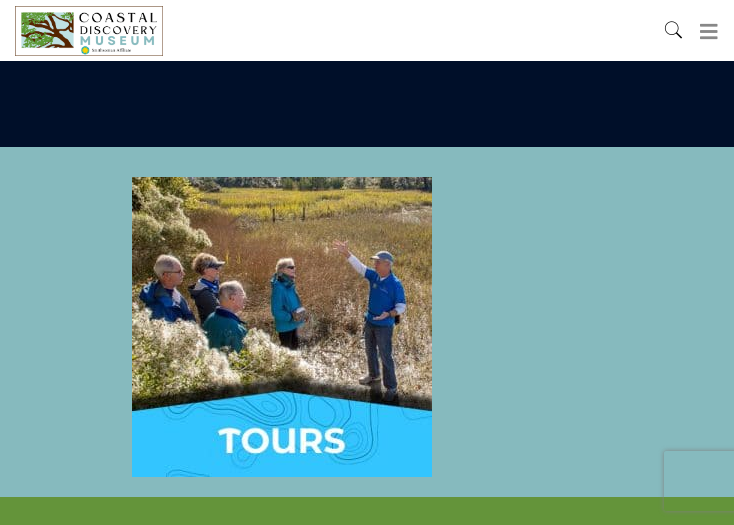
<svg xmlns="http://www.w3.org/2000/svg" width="734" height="525">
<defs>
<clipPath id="clip1"><path d="M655 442h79v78h-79zm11 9h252c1 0 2 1 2 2v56c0 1-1 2-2 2h-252c-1 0-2-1-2-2v-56c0-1 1-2 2-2z" clip-rule="evenodd"/></clipPath>
</defs>
<rect width="100%" height="100%" fill="#86babe"/>
<path fill="#fff" d="M0 0h734v61H0z"/>
<image href="1.png" x="15" y="6" width="148" height="50"/>
<image href="2.png" x="700" y="23" width="18" height="17"/>
<image href="3.png" x="664" y="21" width="19" height="18"/>
<path fill="#000f29" d="M0 61h734v86H0z"/>
<image href="4.png" x="132" y="177" width="300" height="300"/>
<path fill="#64943a" d="M0 497h734v28H0z"/>
<g clip-path="url(#clip1)">
<rect fill="#808080" filter="blur(2.5px)" x="664" y="451" width="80" height="60" rx="2"/>
</g>
</svg>
